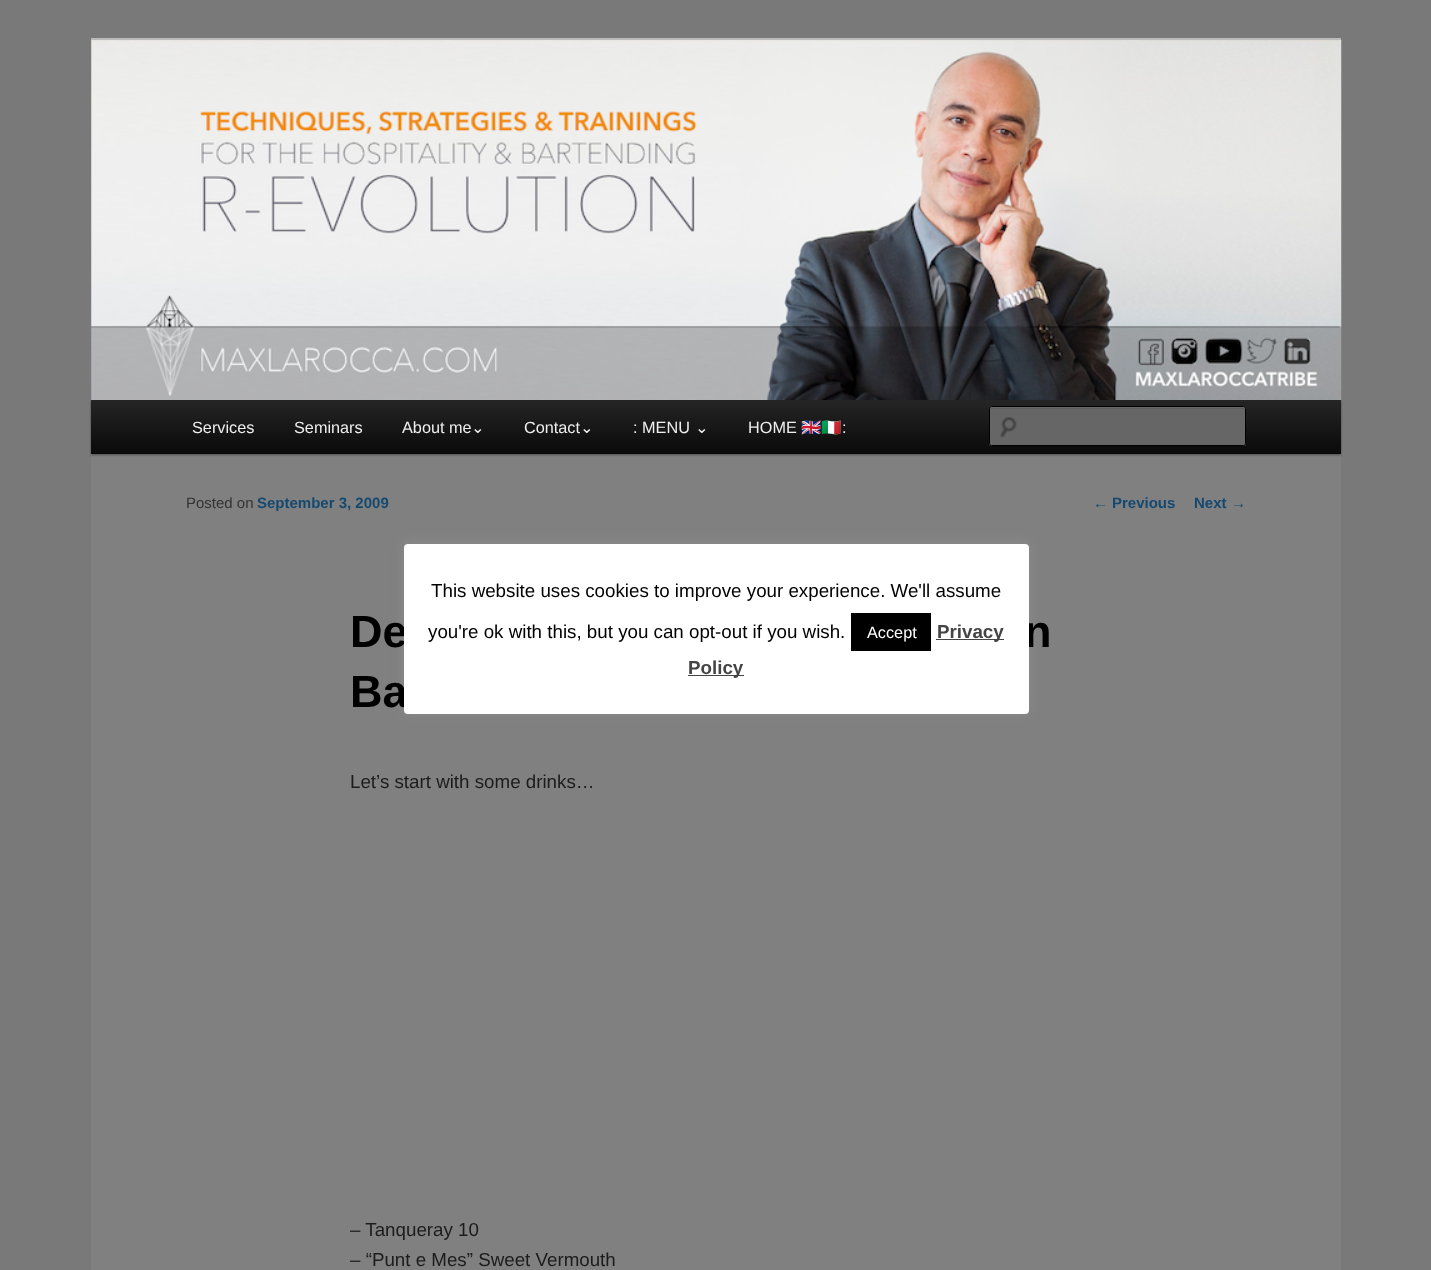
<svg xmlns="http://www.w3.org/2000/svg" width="1431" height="1270">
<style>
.a{font:16.25px Liberation Sans;fill:#eee}
.b{font:16.25px DejaVu Sans;fill:#eee}
.c{font:16.25px Noto Color Emoji;fill:#eee}
.d{font:15px Liberation Sans;fill:#333}
.e{font:bold 15px Liberation Sans;fill:#154970}
.f{font:bold 45px Liberation Sans;fill:#000}
.g{font:18.75px Liberation Sans;fill:#1c1c1c}
.h{font:15px Liberation Sans;fill:#154970}
.i{font:18.75px Liberation Sans;fill:#000}
.j{font:16.25px Liberation Sans;fill:#fff}
.k{font:bold 18.75px Liberation Sans;fill:#444}
</style>
<defs>
<linearGradient id="g1" gradientUnits="userSpaceOnUse" x1="716" y1="400" x2="716" y2="454"><stop offset="0" stop-color="#252525"/><stop offset="1" stop-color="#0a0a0a"/></linearGradient>
</defs>
<rect width="100%" height="100%" fill="#797979"/>
<path fill="#808080" d="M91 41h1250v1229H91z"/>
<path fill="#bbb" d="M91 38h1250v3H91z"/>
<path fill="#00000066" filter="blur(1px)" d="M91 401h1250v54H91z"/>
<image href="1.png" x="91" y="40" width="1251" height="360"/>
<path fill="url(#g1)" d="M91 400h1250v54H91z"/>
<rect fill="#666" x="989" y="406" width="257" height="40" rx="2.5"/>
<image href="2.png" x="1000" y="417" width="17" height="21"/>
<path fill="#5c5c5c" d="M991 409h253l1 1c0-1 0-2-1-2h-254v2z"/>
<rect fill="none" stroke="#000" x="989.5" y="406.5" width="256" height="39" rx="2"/>
<rect fill="#acabab4d" filter="blur(6px)" x="404" y="543" width="625" height="170" rx="4"/>
<text class="a" x="192" y="433">Services</text>
<text class="a" x="294" y="433">Seminars</text>
<text class="a" x="402" y="433">About me</text>
<text class="b" x="471" y="433">⌄</text>
<text class="a" x="524" y="433">Contact</text>
<text class="b" x="580" y="433">⌄</text>
<text class="a" x="633" y="433">: MENU</text>
<text class="b" x="695" y="433">⌄</text>
<text class="a" x="748" y="433">HOME</text>
<text class="c" x="801" y="433">🇬🇧🇮🇹</text>
<text class="a" x="842" y="433">:</text>
<text class="d" x="186" y="508">Posted on</text>
<text class="e" x="257" y="508">September 3, 2009</text>
<text class="f" x="350" y="647">De</text>
<text class="f" x="1024" y="647">n</text>
<text class="f" x="350" y="707">Ba</text>
<text class="g" x="350" y="788">Let’s start with some drinks…</text>
<text class="g" x="350" y="1236">– Tanqueray 10</text>
<text class="g" x="350" y="1266">– “Punt e Mes” Sweet Vermouth</text>
<text class="h" x="1093" y="508">←</text>
<text class="e" x="1112" y="508">Previous</text>
<text class="e" x="1194" y="508">Next</text>
<text class="h" x="1231" y="508">→</text>
<rect fill="#fff" x="404" y="544" width="625" height="170" rx="4"/>
<text class="i" x="431" y="597">This website uses cookies to improve your experience. We'll assume</text>
<text class="i" x="428" y="638">you're ok with this, but you can opt-out if you wish.</text>
<path fill="#000" d="M851 613h80v38H851z"/>
<text class="j" x="867" y="638">Accept</text>
<path fill="#444" d="M936 639h68v1H936z"/>
<text class="k" x="937" y="638">Privacy</text>
<path fill="#444" d="M688 675h56v1H688z"/>
<text class="k" x="688" y="674">Policy</text>
</svg>
